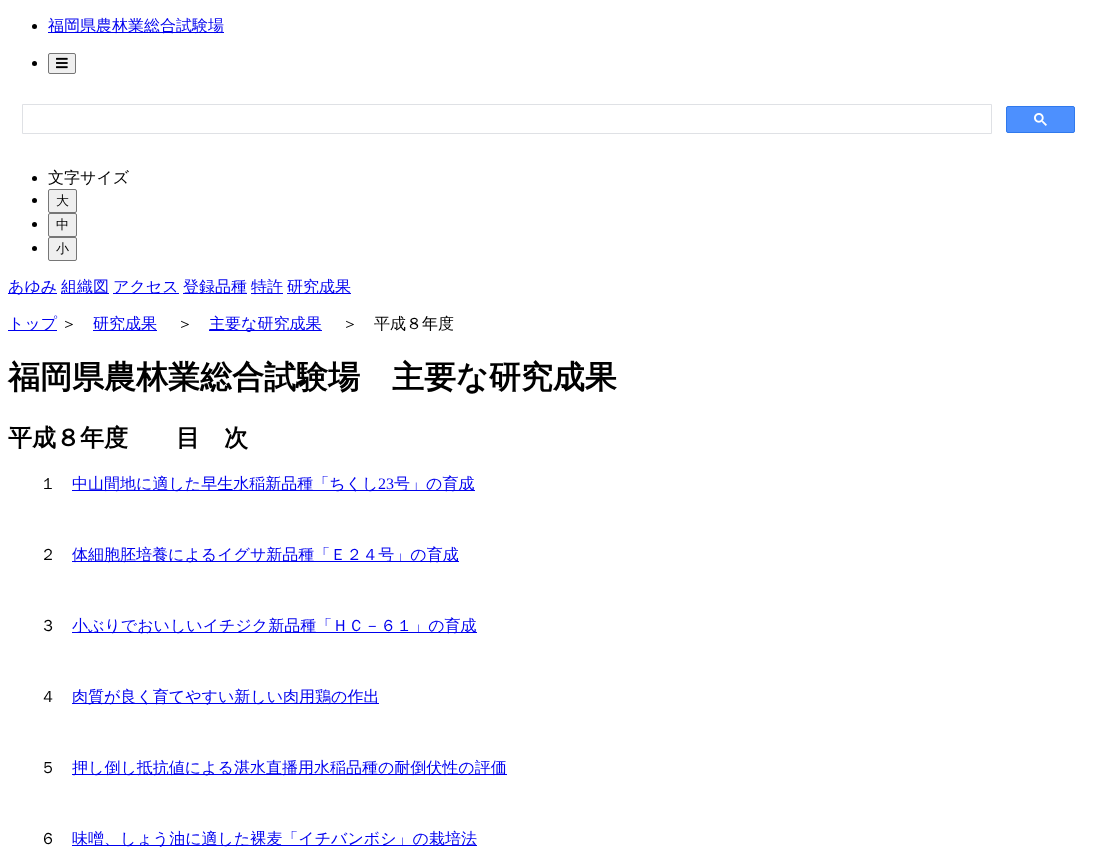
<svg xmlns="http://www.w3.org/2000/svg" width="1097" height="867">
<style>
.a{font:500 16px WenQuanYi Zen Hei;fill:#00e}
.b{font:500 16px WenQuanYi Zen Hei;fill:#000}
.c{font:500 13px WenQuanYi Zen Hei;fill:#000}
.d{font:bold 32px WenQuanYi Zen Hei;fill:#000}
.e{font:bold 24px WenQuanYi Zen Hei;fill:#000}
.f{font:16px Liberation Serif;fill:#00e}
</style>
<rect width="100%" height="100%" fill="#fff"/>
<circle fill="#000" cx="34.5" cy="26.5" r="2.5"/>
<path fill="#00e" d="M48 32h176v1H48z"/>
<circle fill="#000" cx="34.5" cy="63.5" r="2.5"/>
<rect fill="#efefef" stroke="#767676" x="48.5" y="53.5" width="27" height="20" rx="1.5"/>
<image href="1.png" x="56" y="57" width="12" height="12"/>
<path fill="none" stroke="#dfe1e5" d="M22.5 104.5h969v29H22.5z"/>
<rect fill="#4d90fe" stroke="#3079ed" x="1006.5" y="106.5" width="68" height="26" rx="1.5"/>
<image href="2.png" x="1034" y="113" width="13" height="13"/>
<circle fill="#000" cx="34.5" cy="178.5" r="2.5"/>
<circle fill="#000" cx="34.5" cy="200.5" r="2.5"/>
<rect fill="#efefef" stroke="#767676" x="48.5" y="189.5" width="28" height="23" rx="1.5"/>
<circle fill="#000" cx="34.5" cy="224.5" r="2.5"/>
<rect fill="#efefef" stroke="#767676" x="48.5" y="213.5" width="28" height="23" rx="1.5"/>
<circle fill="#000" cx="34.5" cy="248.5" r="2.5"/>
<rect fill="#efefef" stroke="#767676" x="48.5" y="237.5" width="28" height="23" rx="1.5"/>
<path fill="#00e" d="M8 293h49v1H8z"/>
<path fill="#00e" d="M61 293h48v1H61z"/>
<path fill="#00e" d="M113 293h66v1H113z"/>
<path fill="#00e" d="M183 293h64v1H183z"/>
<path fill="#00e" d="M251 293h32v1H251z"/>
<path fill="#00e" d="M287 293h64v1H287z"/>
<path fill="#00e" d="M8 330h49v1H8z"/>
<path fill="#00e" d="M93 330h64v1H93z"/>
<path fill="#00e" d="M209 330h113v1H209z"/>
<path fill="#00e" d="M72 490h403v1H72z"/>
<path fill="#00e" d="M72 561h387v1H72z"/>
<path fill="#00e" d="M72 632h405v1H72z"/>
<path fill="#00e" d="M72 703h307v1H72z"/>
<path fill="#00e" d="M72 774h435v1H72z"/>
<path fill="#00e" d="M72 845h405v1H72z"/>
<text class="a" x="48" y="31">福岡県農林業総合試験場</text>
<text class="b" x="48" y="183">文字サイズ</text>
<text class="c" x="56" y="205">大</text>
<text class="c" x="56" y="229">中</text>
<text class="c" x="56" y="253">小</text>
<text class="a" x="8" y="292">あゆみ</text>
<text class="a" x="61" y="292">組織図</text>
<text class="a" x="113" y="292">アクセス</text>
<text class="a" x="183" y="292">登録品種</text>
<text class="a" x="251" y="292">特許</text>
<text class="a" x="287" y="292">研究成果</text>
<text class="a" x="8" y="329">トップ</text>
<text class="b" x="61" y="329">＞</text>
<text class="a" x="93" y="329">研究成果</text>
<text class="b" x="177" y="329">＞</text>
<text class="a" x="209" y="329">主要な研究成果</text>
<text class="b" x="342" y="329">＞　平成８年度</text>
<text class="d" x="8" y="388">福岡県農林業総合試験場　主要な研究成果</text>
<text class="e" x="8" y="446">平成８年度　　目　次</text>
<text class="b" x="40" y="489">１</text>
<text class="a" x="72" y="489">中山間地に適した早生水稲新品種「ちくし</text>
<text class="f" x="378" y="489">23</text>
<text class="a" x="394" y="489">号」の育成</text>
<text class="b" x="40" y="560">２</text>
<text class="a" x="72" y="560">体細胞胚培養によるイグサ新品種「Ｅ２４号」の育成</text>
<text class="b" x="40" y="631">３</text>
<text class="a" x="72" y="631">小ぶりでおいしいイチジク新品種「ＨＣ－６１」の育成</text>
<text class="b" x="40" y="702">４</text>
<text class="a" x="72" y="702">肉質が良く育てやすい新しい肉用鶏の作出</text>
<text class="b" x="40" y="773">５</text>
<text class="a" x="72" y="773">押し倒し抵抗値による湛水直播用水稲品種の耐倒伏性の評価</text>
<text class="b" x="40" y="844">６</text>
<text class="a" x="72" y="844">味噌、しょう油に適した裸麦「イチバンボシ」の栽培法</text>
</svg>
